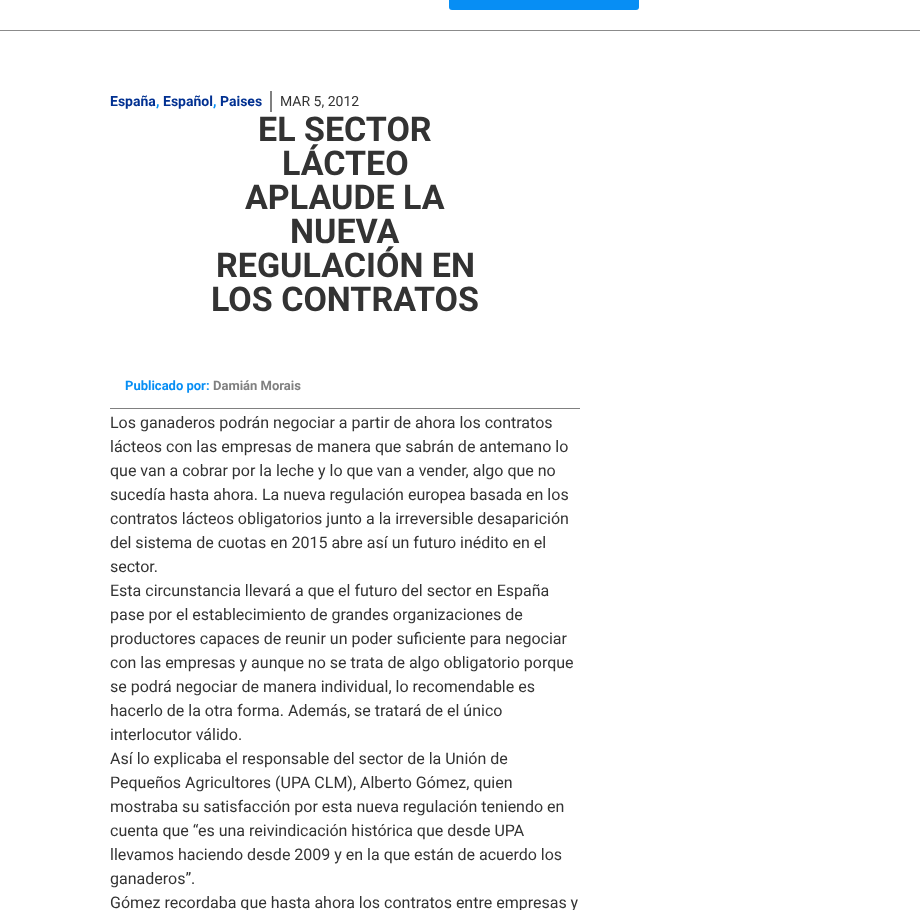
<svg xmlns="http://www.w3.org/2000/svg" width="920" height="910">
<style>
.a{font:bold 14px Roboto;fill:#013091}
.b{font:bold 14px Roboto;fill:#078ef4}
.c{font:14px Roboto;fill:#333}
.d{font:bold 34px Roboto;fill:#333}
.e{font:bold 13px Roboto;fill:#078ef4}
.f{font:bold 13px Roboto;fill:#808080}
.g{font:16px Roboto;fill:#333}
</style>
<rect width="100%" height="100%" fill="#fff"/>
<path fill="#8b8b8b" d="M0 30h920v1H0z"/>
<rect fill="#078ef4" x="449" y="-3" width="190" height="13" rx="3"/>
<path fill="#808080" d="M270 91h2v21H270z"/>
<path fill="#808080" d="M110 408h470v1H110z"/>
<text class="a" x="110" y="106">España</text>
<text class="b" x="156" y="106">,</text>
<text class="a" x="163" y="106">Español</text>
<text class="b" x="213" y="106">,</text>
<text class="a" x="220" y="106">Paises</text>
<text class="c" x="280" y="106">MAR 5, 2012</text>
<text class="d" x="258" y="141">EL SECTOR</text>
<text class="d" x="282" y="175">LÁCTEO</text>
<text class="d" x="245" y="209">APLAUDE LA</text>
<text class="d" x="290" y="243">NUEVA</text>
<text class="d" x="216" y="277">REGULACIÓN EN</text>
<text class="d" x="211" y="311">LOS CONTRATOS</text>
<text class="e" x="125" y="390">Publicado por:</text>
<text class="f" x="213" y="390">Damián Morais</text>
<text class="g" x="110" y="428">Los ganaderos podrán negociar a partir de ahora los contratos</text>
<text class="g" x="110" y="452">lácteos con las empresas de manera que sabrán de antemano lo</text>
<text class="g" x="110" y="476">que van a cobrar por la leche y lo que van a vender, algo que no</text>
<text class="g" x="110" y="500">sucedía hasta ahora. La nueva regulación europea basada en los</text>
<text class="g" x="110" y="524">contratos lácteos obligatorios junto a la irreversible desaparición</text>
<text class="g" x="110" y="548">del sistema de cuotas en 2015 abre así un futuro inédito en el</text>
<text class="g" x="110" y="572">sector.</text>
<text class="g" x="110" y="596">Esta circunstancia llevará a que el futuro del sector en España</text>
<text class="g" x="110" y="620">pase por el establecimiento de grandes organizaciones de</text>
<text class="g" x="110" y="644">productores capaces de reunir un poder suficiente para negociar</text>
<text class="g" x="110" y="668">con las empresas y aunque no se trata de algo obligatorio porque</text>
<text class="g" x="110" y="692">se podrá negociar de manera individual, lo recomendable es</text>
<text class="g" x="110" y="716">hacerlo de la otra forma. Además, se tratará de el único</text>
<text class="g" x="110" y="740">interlocutor válido.</text>
<text class="g" x="110" y="764">Así lo explicaba el responsable del sector de la Unión de</text>
<text class="g" x="110" y="788">Pequeños Agricultores (UPA CLM), Alberto Gómez, quien</text>
<text class="g" x="110" y="812">mostraba su satisfacción por esta nueva regulación teniendo en</text>
<text class="g" x="110" y="836">cuenta que “es una reivindicación histórica que desde UPA</text>
<text class="g" x="110" y="860">llevamos haciendo desde 2009 y en la que están de acuerdo los</text>
<text class="g" x="110" y="884">ganaderos”.</text>
<text class="g" x="110" y="908">Gómez recordaba que hasta ahora los contratos entre empresas y</text>
</svg>
